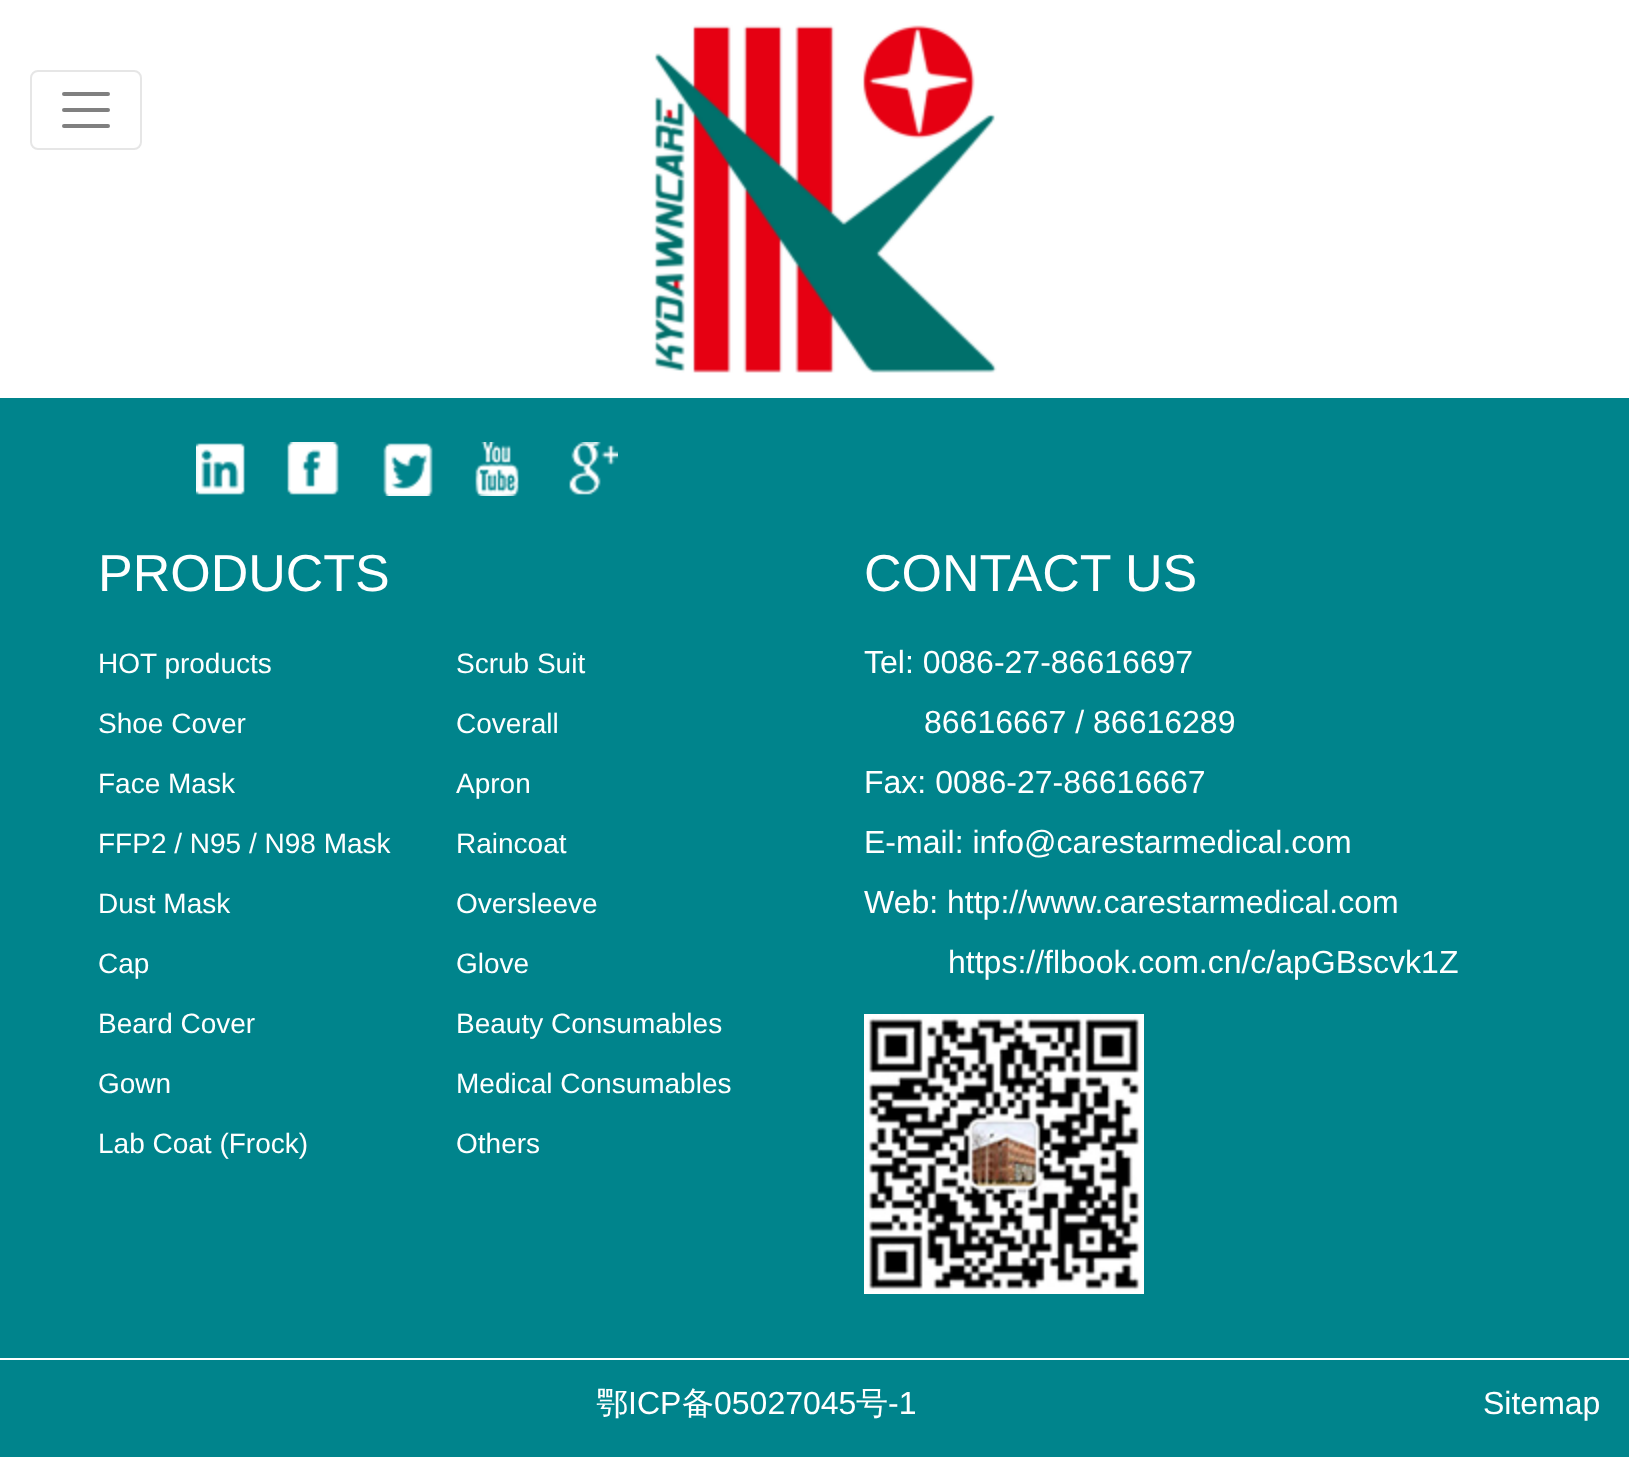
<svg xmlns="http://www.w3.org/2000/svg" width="1629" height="1457">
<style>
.a{font:52px Liberation Sans;fill:#fff}
.b{font:28px Liberation Sans;fill:#fff}
.c{font:32px Liberation Sans;fill:#fff}
.d{font:500 32px WenQuanYi Zen Hei;fill:#fff}
</style>
<rect width="100%" height="100%" fill="#00848c"/>
<path fill="#fff" d="M0 0h1629v398H0z"/>
<rect fill="none" stroke="#e6e6e6" stroke-width="2" x="31" y="71" width="110" height="78" rx="7"/>
<path fill="none" stroke="#808080" stroke-width="4" stroke-linecap="round" d="M64 94h44m-44 16h44m-44 16h44"/>
<image href="1.png" x="654" y="25" width="343" height="348"/>
<image href="2.png" x="196" y="442" width="422" height="54"/>
<image href="3.png" x="864" y="1014" width="280" height="280"/>
<path fill="#fff" d="M0 1358h1629v2H0z"/>
<text class="a" x="98" y="591">PRODUCTS</text>
<text class="b" x="98" y="673">HOT products</text>
<text class="b" x="98" y="733">Shoe Cover</text>
<text class="b" x="98" y="793">Face Mask</text>
<text class="b" x="98" y="853">FFP2 / N95 / N98 Mask</text>
<text class="b" x="98" y="913">Dust Mask</text>
<text class="b" x="98" y="973">Cap</text>
<text class="b" x="98" y="1033">Beard Cover</text>
<text class="b" x="98" y="1093">Gown</text>
<text class="b" x="98" y="1153">Lab Coat (Frock)</text>
<text class="b" x="456" y="673">Scrub Suit</text>
<text class="b" x="456" y="733">Coverall</text>
<text class="b" x="456" y="793">Apron</text>
<text class="b" x="456" y="853">Raincoat</text>
<text class="b" x="456" y="913">Oversleeve</text>
<text class="b" x="456" y="973">Glove</text>
<text class="b" x="456" y="1033">Beauty Consumables</text>
<text class="b" x="456" y="1093">Medical Consumables</text>
<text class="b" x="456" y="1153">Others</text>
<text class="a" x="864" y="591">CONTACT US</text>
<text class="c" x="864" y="673">Tel: 0086-27-86616697</text>
<text class="c" x="924" y="733">86616667 / 86616289</text>
<text class="c" x="864" y="793">Fax: 0086-27-86616667</text>
<text class="c" x="864" y="853">E-mail: info@carestarmedical.com</text>
<text class="c" x="864" y="913">Web: http://www.carestarmedical.com</text>
<text class="c" x="948" y="973">https://flbook.com.cn/c/apGBscvk1Z</text>
<text class="d" x="596" y="1414">鄂</text>
<text class="c" x="628" y="1414">ICP</text>
<text class="d" x="682" y="1414">备</text>
<text class="c" x="714" y="1414">05027045</text>
<text class="d" x="856" y="1414">号</text>
<text class="c" x="888" y="1414">-1</text>
<text class="c" x="1483" y="1414">Sitemap</text>
</svg>
